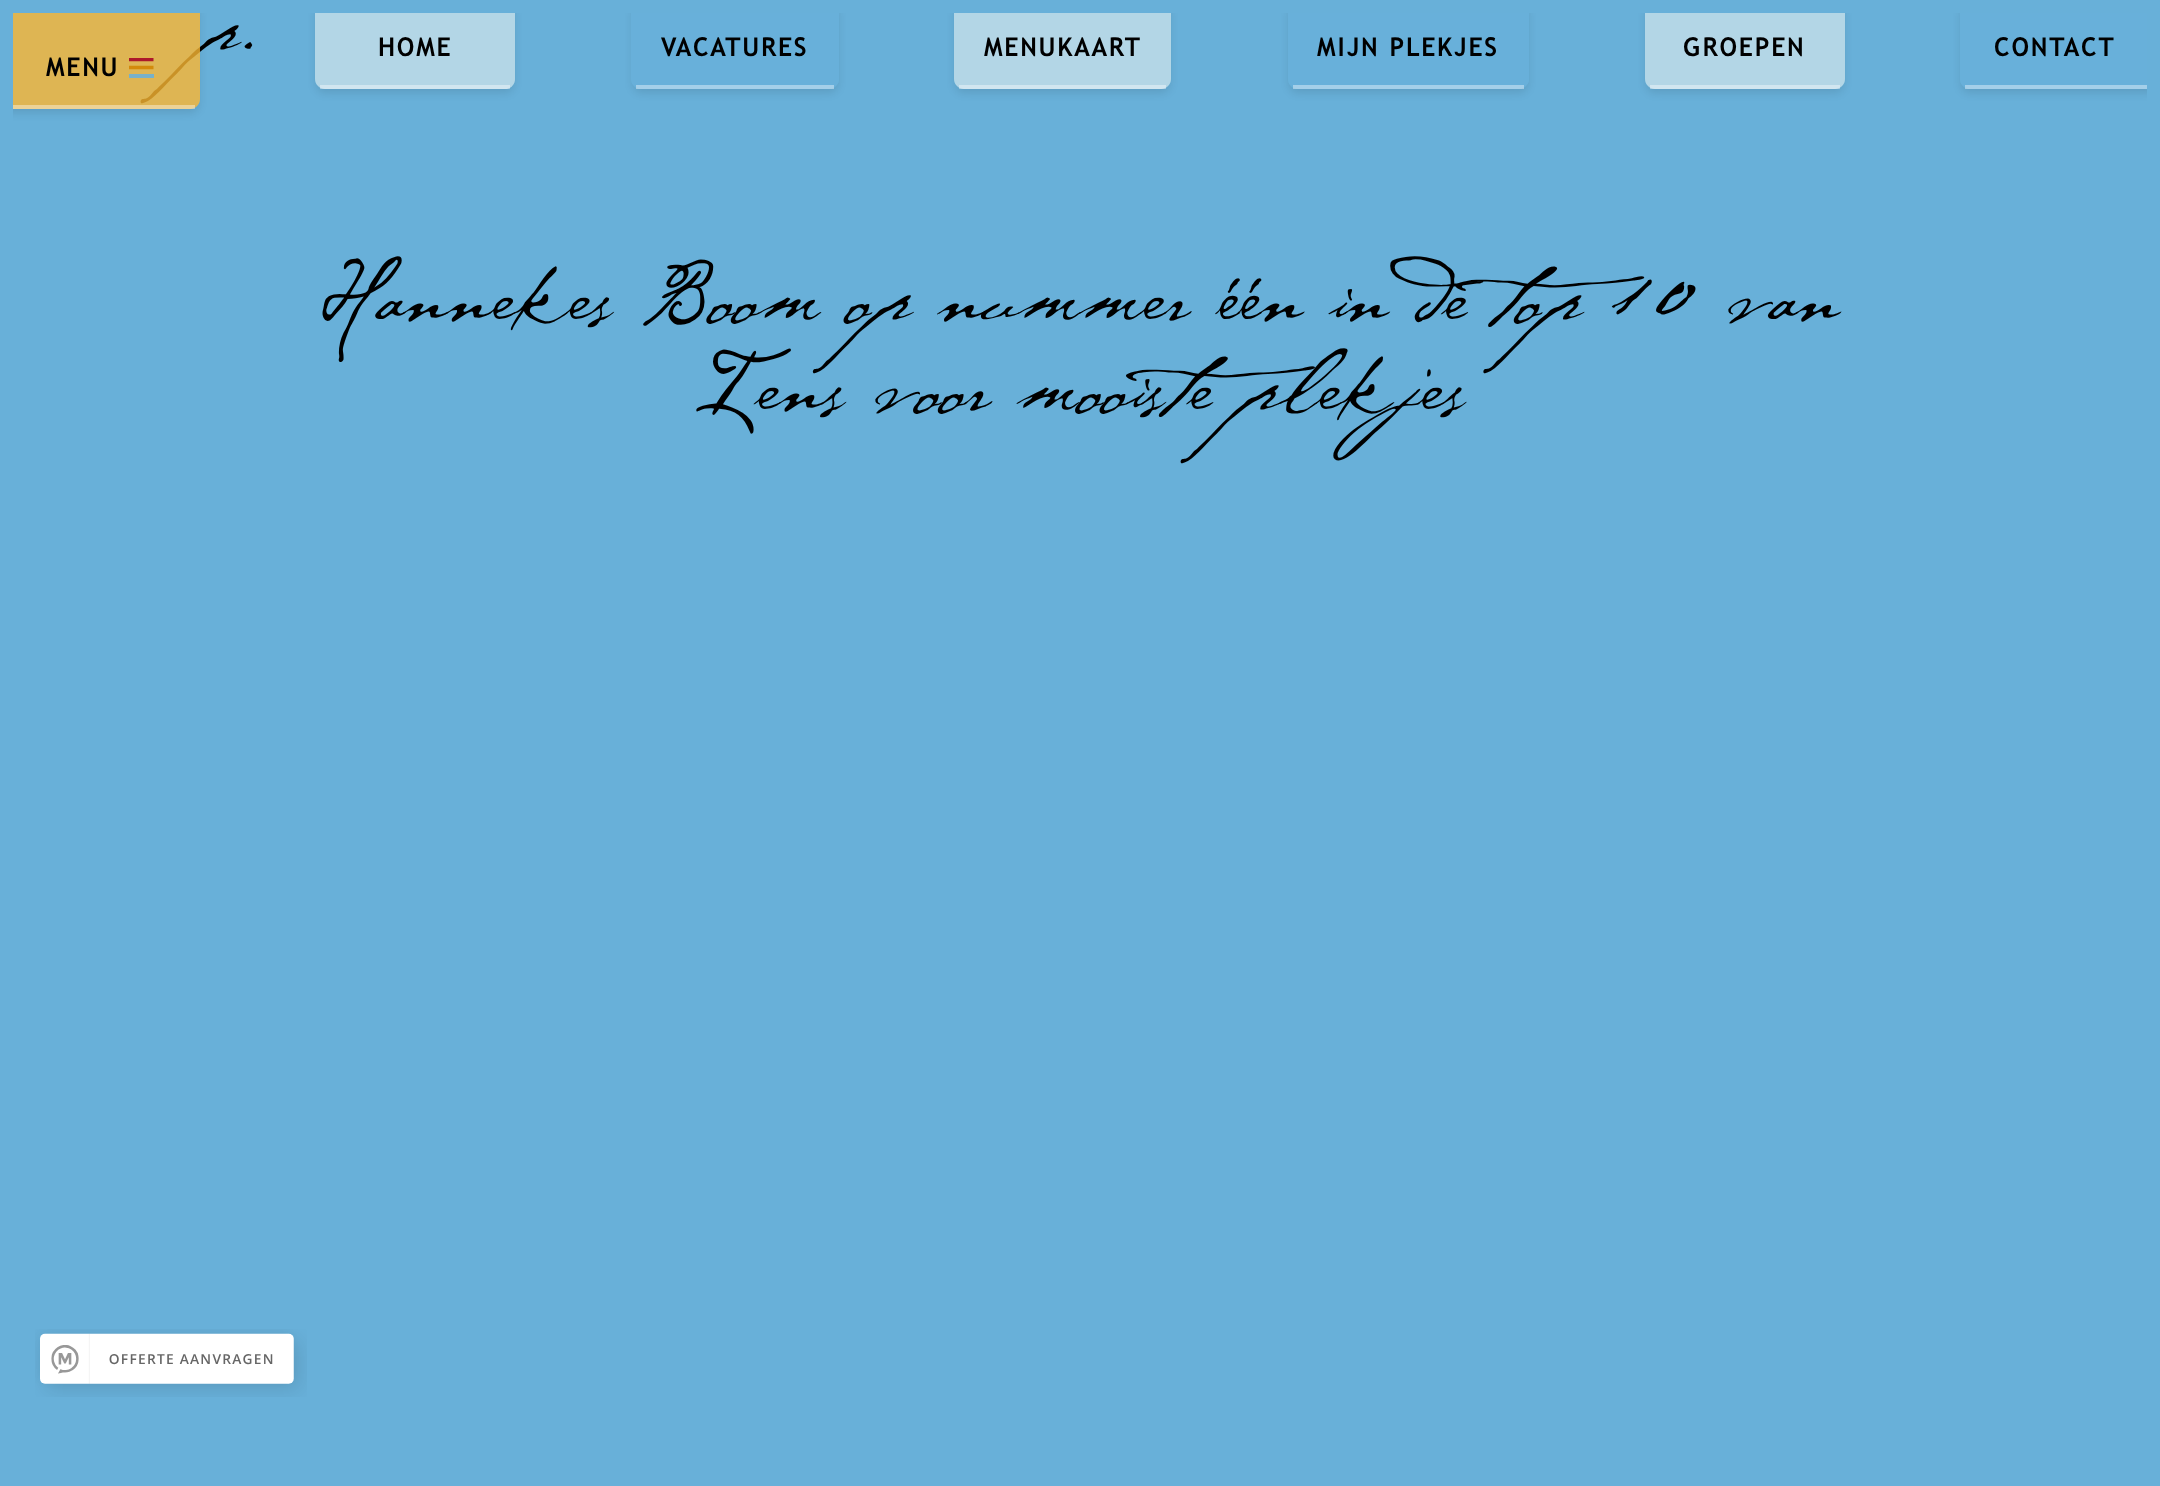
<svg xmlns="http://www.w3.org/2000/svg" width="2160" height="1486">
<style>
.a{font:90px 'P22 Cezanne';fill:#000}
.b{font:bold 25px Trebuchet MS;letter-spacing:2.5px;fill:#000}
</style>
<defs>
<clipPath id="clip1"><path d="M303 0h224v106h-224zm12 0h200v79c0 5.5-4.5 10-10 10h-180c-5.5 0-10-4.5-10-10z" clip-rule="evenodd"/></clipPath>
<clipPath id="clip2"><path d="M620 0h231v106h-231zm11 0h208v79c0 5.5-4.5 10-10 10h-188c-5.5 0-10-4.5-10-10z" clip-rule="evenodd"/></clipPath>
<clipPath id="clip3"><path d="M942 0h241v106h-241zm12 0h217v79c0 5.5-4.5 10-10 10h-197c-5.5 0-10-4.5-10-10z" clip-rule="evenodd"/></clipPath>
<clipPath id="clip4"><path d="M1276 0h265v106h-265zm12 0h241v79c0 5.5-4.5 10-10 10h-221c-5.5 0-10-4.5-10-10z" clip-rule="evenodd"/></clipPath>
<clipPath id="clip5"><path d="M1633 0h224v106h-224zm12 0h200v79c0 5.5-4.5 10-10 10h-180c-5.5 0-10-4.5-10-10z" clip-rule="evenodd"/></clipPath>
<clipPath id="clip6"><path d="M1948 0h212v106h-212zm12 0h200v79c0 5.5-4.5 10-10 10h-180c-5.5 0-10-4.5-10-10z" clip-rule="evenodd"/></clipPath>
<clipPath id="clip7"><path d="M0 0h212v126h-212zm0 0h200v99c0 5.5-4.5 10-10 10h-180c-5.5 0-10-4.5-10-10z" clip-rule="evenodd"/></clipPath>
<clipPath id="clip8"><path d="M129 58h25v21H129z"/></clipPath>
</defs>
<rect width="100%" height="100%" fill="#68b0d9"/>
<g clip-path="url(#clip1)">
<rect fill="#0000001a" filter="blur(4px)" x="316" y="6" width="198" height="87" rx="9"/>
</g>
<path fill="#c6e0e8cc" d="M315 0h200v79c0 5.5-4.5 10-10 10h-180c-5.5 0-10-4.5-10-10z"/>
<path fill="#ffffff66" d="M320 85h190v4H320z"/>
<g clip-path="url(#clip2)">
<rect fill="#0000001a" filter="blur(4px)" x="633" y="6" width="205" height="87" rx="9"/>
</g>
<path fill="#68b0d9cc" d="M631 0h208v79c0 5.5-4.5 10-10 10h-188c-5.5 0-10-4.5-10-10z"/>
<path fill="#ffffff66" d="M636 85h198v4H636z"/>
<g clip-path="url(#clip3)">
<rect fill="#0000001a" filter="blur(4px)" x="955" y="6" width="215" height="87" rx="9"/>
</g>
<path fill="#c6e0e8cc" d="M954 0h217v79c0 5.5-4.5 10-10 10h-197c-5.5 0-10-4.5-10-10z"/>
<path fill="#ffffff66" d="M959 85h207v4H959z"/>
<g clip-path="url(#clip4)">
<rect fill="#0000001a" filter="blur(4px)" x="1289" y="6" width="239" height="87" rx="9"/>
</g>
<path fill="#68b0d9cc" d="M1288 0h241v79c0 5.5-4.5 10-10 10h-221c-5.5 0-10-4.5-10-10z"/>
<path fill="#ffffff66" d="M1293 85h231v4H1293z"/>
<g clip-path="url(#clip5)">
<rect fill="#0000001a" filter="blur(4px)" x="1646" y="6" width="198" height="87" rx="9"/>
</g>
<path fill="#c6e0e8cc" d="M1645 0h200v79c0 5.5-4.5 10-10 10h-180c-5.5 0-10-4.5-10-10z"/>
<path fill="#ffffff66" d="M1650 85h190v4H1650z"/>
<g clip-path="url(#clip6)">
<rect fill="#0000001a" filter="blur(4px)" x="1961" y="6" width="198" height="87" rx="9"/>
</g>
<path fill="#68b0d9cc" d="M1960 0h200v79c0 5.5-4.5 10-10 10h-180c-5.5 0-10-4.5-10-10z"/>
<path fill="#ffffff66" d="M1965 85h190v4H1965z"/>
<g clip-path="url(#clip7)">
<rect fill="#0000001a" filter="blur(4px)" x="1" y="6" width="198" height="107" rx="9"/>
</g>
<text class="a" x="199" y="48">p.</text>
<text class="a" x="320" y="318">Hannekes Boom op nummer één in de top 10 van</text>
<text class="a" x="695" y="408">Iens voor mooiste plekjes</text>
<text class="b" x="378" y="56">HOME</text>
<text class="b" x="661" y="56">VACATURES</text>
<text class="b" x="984" y="56">MENUKAART</text>
<text class="b" x="1317" y="56">MIJN PLEKJES</text>
<text class="b" x="1683" y="56">GROEPEN</text>
<text class="b" x="1994" y="56">CONTACT</text>
<path fill="#fbb731cc" d="M0 0h200v99c0 5.5-4.5 10-10 10h-180c-5.5 0-10-4.5-10-10z"/>
<path fill="#ffffff66" d="M5 105h190v4H5z"/>
<text class="b" x="46" y="76">MENU</text>
<g clip-path="url(#clip8)">
<path fill="none" stroke="#ac182b" stroke-width="3.5" d="M129 59.5h24.5"/>
</g>
<path fill="none" stroke="#d38a0b" stroke-width="3.5" d="M129 67.5h24.5"/>
<path fill="#78b1c9" d="M129 74h25v4H129z"/>
<path fill="none" stroke="#68b0d9" stroke-width="13" d="M6.5 6.5h2147v1473H6.5z"/>
<image href="1.png" x="35" y="1329" width="272" height="68"/>
</svg>
